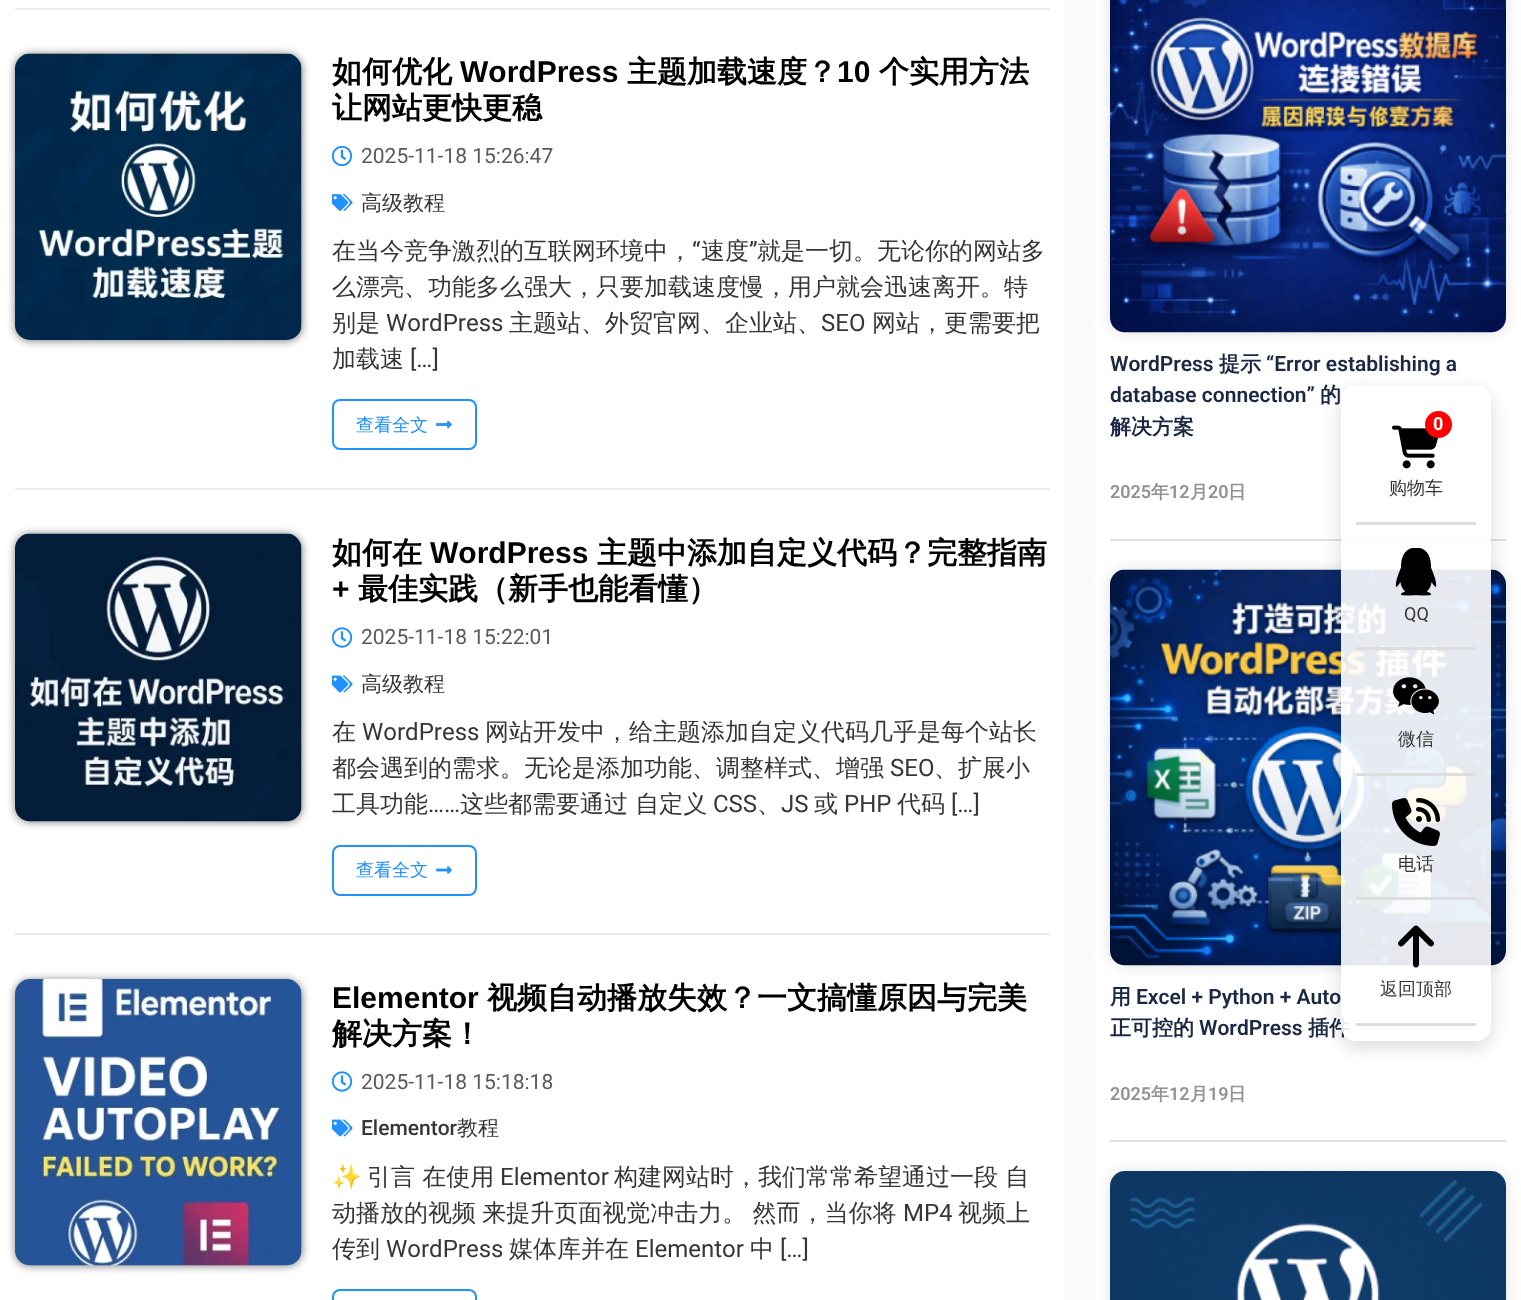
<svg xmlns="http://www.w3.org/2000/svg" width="1521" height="1300">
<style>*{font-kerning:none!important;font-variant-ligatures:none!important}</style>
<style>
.a{font:bold 30px WenQuanYi Zen Hei;fill:#000}
.b{font:bold 30px Liberation Sans;fill:#000}
.c{font:21px Roboto;fill:#5a5a5a}
.d{font:500 21px WenQuanYi Zen Hei;fill:#363636}
.e{font:500 24px WenQuanYi Zen Hei;fill:#363636}
.f{font:24px Roboto;fill:#363636}
.g{font:500 18px WenQuanYi Zen Hei;fill:#2191fb}
.h{font:500 21px Roboto;fill:#363636}
.i{font:24px Noto Color Emoji;fill:#363636}
.j{font:600 21px Roboto;fill:#1b2845}
.k{font:bold 21px WenQuanYi Zen Hei;fill:#1b2845}
.l{font:600 18px Roboto;fill:#929292}
.m{font:bold 18px WenQuanYi Zen Hei;fill:#929292}
.n{font:bold 18px Roboto;fill:#fff}
.o{font:500 18px WenQuanYi Zen Hei;fill:#363636}
.p{font:18px Roboto;fill:#363636}
</style>
<defs>
<clipPath id="clip1"><path d="M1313 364h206v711h-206zm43 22h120c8.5 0 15 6.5 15 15v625c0 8.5-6.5 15-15 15h-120c-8.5 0-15-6.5-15-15v-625c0-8.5 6.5-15 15-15z" clip-rule="evenodd"/></clipPath>
</defs>
<rect width="100%" height="100%" fill="#fafafa"/>
<path fill="#fff" d="M0 0h1065v1300H0z"/>
<path fill="#ebebeb" d="M15 8h1035v2H15z"/>
<path fill="#ebebeb" d="M15 488h1035v2H15z"/>
<rect fill="#00000080" filter="blur(4px)" x="15" y="54" width="287" height="287" rx="15"/>
<image href="1.png" x="15" y="53" width="287" height="287"/>
<image href="2.png" x="332" y="146" width="21" height="21"/>
<image href="3.png" x="332" y="194" width="21" height="17"/>
<rect fill="none" stroke="#2191fb" stroke-width="2" x="333" y="400" width="143" height="49" rx="7"/>
<image href="4.png" x="436" y="420" width="16" height="9"/>
<path fill="#ebebeb" d="M15 933h1035v2H15z"/>
<rect fill="#00000080" filter="blur(4px)" x="15" y="534" width="287" height="288" rx="15"/>
<image href="5.png" x="15" y="533" width="287" height="289"/>
<image href="6.png" x="332" y="627" width="21" height="21"/>
<image href="7.png" x="332" y="675" width="21" height="18"/>
<rect fill="none" stroke="#2191fb" stroke-width="2" x="333" y="846" width="143" height="49" rx="7"/>
<image href="8.png" x="436" y="866" width="16" height="8"/>
<rect fill="#00000080" filter="blur(4px)" x="15" y="980" width="287" height="286" rx="15"/>
<image href="9.png" x="15" y="979" width="287" height="287"/>
<image href="6.png" x="332" y="1071" width="21" height="21"/>
<image href="7.png" x="332" y="1119" width="21" height="18"/>
<rect fill="none" stroke="#2191fb" stroke-width="2" x="333" y="1290" width="143" height="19" rx="7"/>
<path fill="#fff" d="M1095 0h426v1300H1095z"/>
<path fill="#e0e0e0" d="M1110 539h396v2H1110z"/>
<rect fill="#0000001f" filter="blur(7.5px)" x="1110" y="-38" width="396" height="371" rx="15"/>
<image href="10.png" x="1110" y="0" width="396" height="333"/>
<path fill="#e0e0e0" d="M1110 1140h396v2H1110z"/>
<rect fill="#0000001f" filter="blur(7.5px)" x="1110" y="570" width="396" height="396" rx="15"/>
<image href="11.png" x="1110" y="569" width="396" height="397"/>
<rect fill="#0000001f" filter="blur(7.5px)" x="1110" y="1172" width="396" height="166" rx="15"/>
<image href="12.png" x="1110" y="1171" width="396" height="129"/>
<g clip-path="url(#clip1)">
<rect fill="#00000026" filter="blur(9px)" x="1341" y="392" width="150" height="655" rx="15"/>
</g>
<text class="a" x="332" y="82">如何优化</text>
<text class="b" x="460" y="82">WordPress</text>
<text class="a" x="627" y="82">主题加载速度？</text>
<text class="b" x="837" y="82">10</text>
<text class="a" x="879" y="82">个实用方法</text>
<text class="a" x="332" y="118">让网站更快更稳</text>
<text class="c" x="361" y="163">2025-11-18 15:26:47</text>
<text class="d" x="361" y="210">高级教程</text>
<text class="e" x="332" y="259">在当今竞争激烈的互联网环境中，</text>
<text class="f" x="692" y="259">“</text>
<text class="e" x="701" y="259">速度</text>
<text class="f" x="749" y="259">”</text>
<text class="e" x="757" y="259">就是一切。无论你的网站多</text>
<text class="e" x="332" y="295">么漂亮、功能多么强大，只要加载速度慢，用户就会迅速离开。特</text>
<text class="e" x="332" y="331">别是</text>
<text class="f" x="386" y="331">WordPress</text>
<text class="e" x="509" y="331">主题站、外贸官网、企业站、</text>
<text class="f" x="821" y="331">SEO</text>
<text class="e" x="872" y="331">网站，更需要把</text>
<text class="e" x="332" y="367">加载速</text>
<text class="f" x="410" y="367">[…]</text>
<text class="g" x="356" y="431">查看全文</text>
<text class="a" x="332" y="563">如何在</text>
<text class="b" x="430" y="563">WordPress</text>
<text class="a" x="597" y="563">主题中添加自定义代码？完整指南</text>
<text class="b" x="332" y="599">+</text>
<text class="a" x="358" y="599">最佳实践（新手也能看懂）</text>
<text class="c" x="361" y="644">2025-11-18 15:22:01</text>
<text class="d" x="361" y="691">高级教程</text>
<text class="e" x="332" y="740">在</text>
<text class="f" x="362" y="740">WordPress</text>
<text class="e" x="485" y="740">网站开发中，给主题添加自定义代码几乎是每个站长</text>
<text class="e" x="332" y="776">都会遇到的需求。无论是添加功能、调整样式、增强</text>
<text class="f" x="890" y="776">SEO</text>
<text class="e" x="934" y="776">、扩展小</text>
<text class="e" x="332" y="812">工具功能</text>
<text class="f" x="428" y="812">……</text>
<text class="e" x="460" y="812">这些都需要通过 自定义</text>
<text class="f" x="713" y="812">CSS</text>
<text class="e" x="757" y="812">、</text>
<text class="f" x="781" y="812">JS</text>
<text class="e" x="814" y="812">或</text>
<text class="f" x="844" y="812">PHP</text>
<text class="e" x="897" y="812">代码</text>
<text class="f" x="951" y="812">[…]</text>
<text class="g" x="356" y="876">查看全文</text>
<text class="b" x="332" y="1008">Elementor</text>
<text class="a" x="487" y="1008">视频自动播放失效？一文搞懂原因与完美</text>
<text class="a" x="332" y="1044">解决方案！</text>
<text class="c" x="361" y="1089">2025-11-18 15:18:18</text>
<text class="h" x="361" y="1135">Elementor</text>
<text class="d" x="457" y="1135">教程</text>
<text class="i" x="332" y="1185">✨</text>
<text class="e" x="367" y="1185">引言 在使用</text>
<text class="f" x="500" y="1185">Elementor</text>
<text class="e" x="614" y="1185">构建网站时，我们常常希望通过一段 自</text>
<text class="e" x="332" y="1221" word-spacing="-1">动播放的视频 来提升页面视觉冲击力。 然而，当你将</text>
<text class="f" x="903" y="1221">MP4</text>
<text class="e" x="958" y="1221">视频上</text>
<text class="e" x="332" y="1257">传到</text>
<text class="f" x="386" y="1257">WordPress</text>
<text class="e" x="509" y="1257">媒体库并在</text>
<text class="f" x="635" y="1257">Elementor</text>
<text class="e" x="750" y="1257">中</text>
<text class="f" x="780" y="1257">[…]</text>
<text class="j" x="1110" y="371">WordPress</text>
<text class="k" x="1219" y="371">提示</text>
<text class="j" x="1266" y="371">“Error establishing a</text>
<text class="j" x="1110" y="402">database connection”</text>
<text class="k" x="1320" y="402">的</text>
<text class="k" x="1110" y="434">解决方案</text>
<text class="l" x="1110" y="498">2025</text>
<text class="m" x="1151" y="498">年</text>
<text class="l" x="1169" y="498">12</text>
<text class="m" x="1190" y="498">月</text>
<text class="l" x="1208" y="498">20</text>
<text class="m" x="1228" y="498">日</text>
<text class="k" x="1110" y="1004">用</text>
<text class="j" x="1136" y="1004">Excel + Python + Auto</text>
<text class="k" x="1110" y="1035">正可控的</text>
<text class="j" x="1199" y="1035">WordPress</text>
<text class="k" x="1308" y="1035">插件</text>
<text class="l" x="1110" y="1100">2025</text>
<text class="m" x="1151" y="1100">年</text>
<text class="l" x="1169" y="1100">12</text>
<text class="m" x="1190" y="1100">月</text>
<text class="l" x="1208" y="1100">19</text>
<text class="m" x="1228" y="1100">日</text>
<rect fill="#ffffffe6" x="1341" y="386" width="150" height="655" rx="15"/>
<path fill="#ddd" d="M1356 522h120v3H1356z"/>
<image href="13.png" x="1392" y="425" width="47" height="44"/>
<circle fill="#f00" cx="1438.5" cy="424.5" r="13.5"/>
<text class="n" x="1433" y="430">0</text>
<text class="o" x="1389" y="494">购物车</text>
<path fill="#ddd" d="M1356 647h120v3H1356z"/>
<image href="14.png" x="1395" y="548" width="42" height="48"/>
<text class="p" x="1404" y="620">QQ</text>
<path fill="#ddd" d="M1356 773h120v3H1356z"/>
<image href="15.png" x="1393" y="677" width="46" height="38"/>
<text class="o" x="1398" y="745">微信</text>
<path fill="#ddd" d="M1356 897h120v3H1356z"/>
<image href="16.png" x="1392" y="798" width="48" height="48"/>
<text class="o" x="1398" y="870">电话</text>
<path fill="#ddd" d="M1356 1023h120v3H1356z"/>
<image href="17.png" x="1398" y="925" width="36" height="43"/>
<text class="o" x="1380" y="995">返回顶部</text>
</svg>
